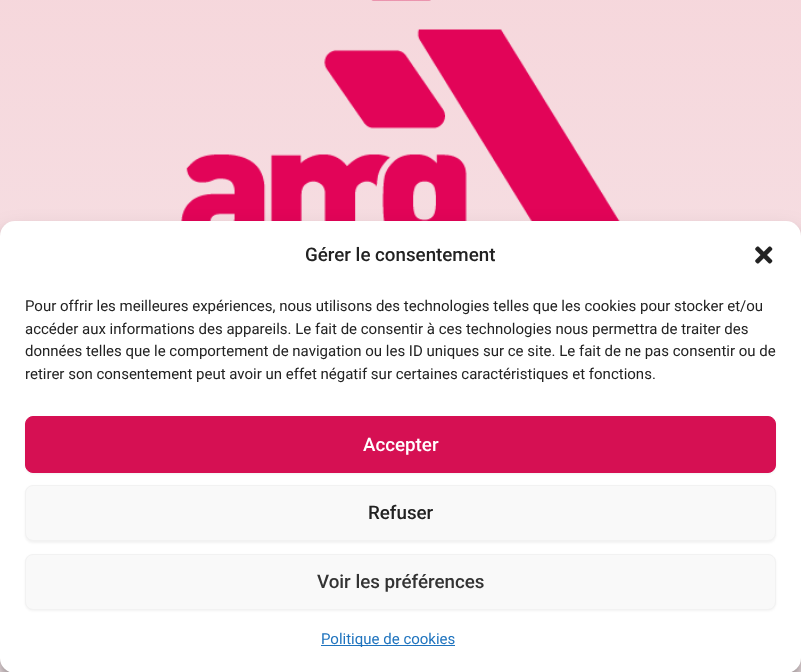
<svg xmlns="http://www.w3.org/2000/svg" width="801" height="672">
<style>
.a{font:500 18.75px Roboto;fill:#222}
.b{font:15px Roboto;fill:#222}
.c{font:500 18.75px Roboto;fill:#fff}
.d{font:500 18.75px Roboto;fill:#333}
.e{font:15px Roboto;fill:#1e73be}
</style>
<defs>
<linearGradient id="g1" gradientUnits="userSpaceOnUse" x1="401" y1="-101" x2="401" y2="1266"><stop offset="0" stop-color="#f6d5da"/><stop offset="1" stop-color="#f5f5f7"/></linearGradient>
</defs>
<rect width="100%" height="100%" fill="#fff"/>
<path fill="url(#g1)" d="M0 0h801v672H0z"/>
<image href="1.png" x="371" y="0" width="60" height="1"/>
<image href="2.png" x="181" y="29" width="439" height="192"/>
<rect fill="#0000003b" filter="blur(4px)" y="229" width="801" height="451" rx="15"/>
<rect fill="#00000030" filter="blur(12.5px)" y="234" width="801" height="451" rx="15"/>
<rect fill="#fff" y="221" width="801" height="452" rx="15"/>
<image href="3.png" x="755" y="246" width="18" height="18"/>
<rect fill="#0000000d" filter="blur(1px)" x="25" y="418" width="751" height="56" rx="8"/>
<rect fill="#d61053" stroke="#d61053" x="25.5" y="416.5" width="750" height="56" rx="7.5"/>
<rect fill="#0000000d" filter="blur(1px)" x="25" y="486" width="751" height="57" rx="8"/>
<rect fill="#f9f9f9" stroke="#f2f2f2" x="25.5" y="485.5" width="750" height="55" rx="7.5"/>
<rect fill="#0000000d" filter="blur(1px)" x="25" y="555" width="751" height="56" rx="8"/>
<rect fill="#f9f9f9" stroke="#f2f2f2" x="25.5" y="554.5" width="750" height="55" rx="7.5"/>
<path fill="#1e73be" d="M321 645h134v1H321z"/>
<text class="a" x="305" y="261">Gérer le consentement</text>
<text class="b" x="25" y="311">Pour offrir les meilleures expériences, nous utilisons des technologies telles que les cookies pour stocker et/ou</text>
<text class="b" x="25" y="334">accéder aux informations des appareils. Le fait de consentir à ces technologies nous permettra de traiter des</text>
<text class="b" x="25" y="356">données telles que le comportement de navigation ou les ID uniques sur ce site. Le fait de ne pas consentir ou de</text>
<text class="b" x="25" y="379">retirer son consentement peut avoir un effet négatif sur certaines caractéristiques et fonctions.</text>
<text class="c" x="363" y="451">Accepter</text>
<text class="a" x="368" y="519">Refuser</text>
<text class="d" x="317" y="588">Voir les préférences</text>
<text class="e" x="321" y="644">Politique de cookies</text>
</svg>
